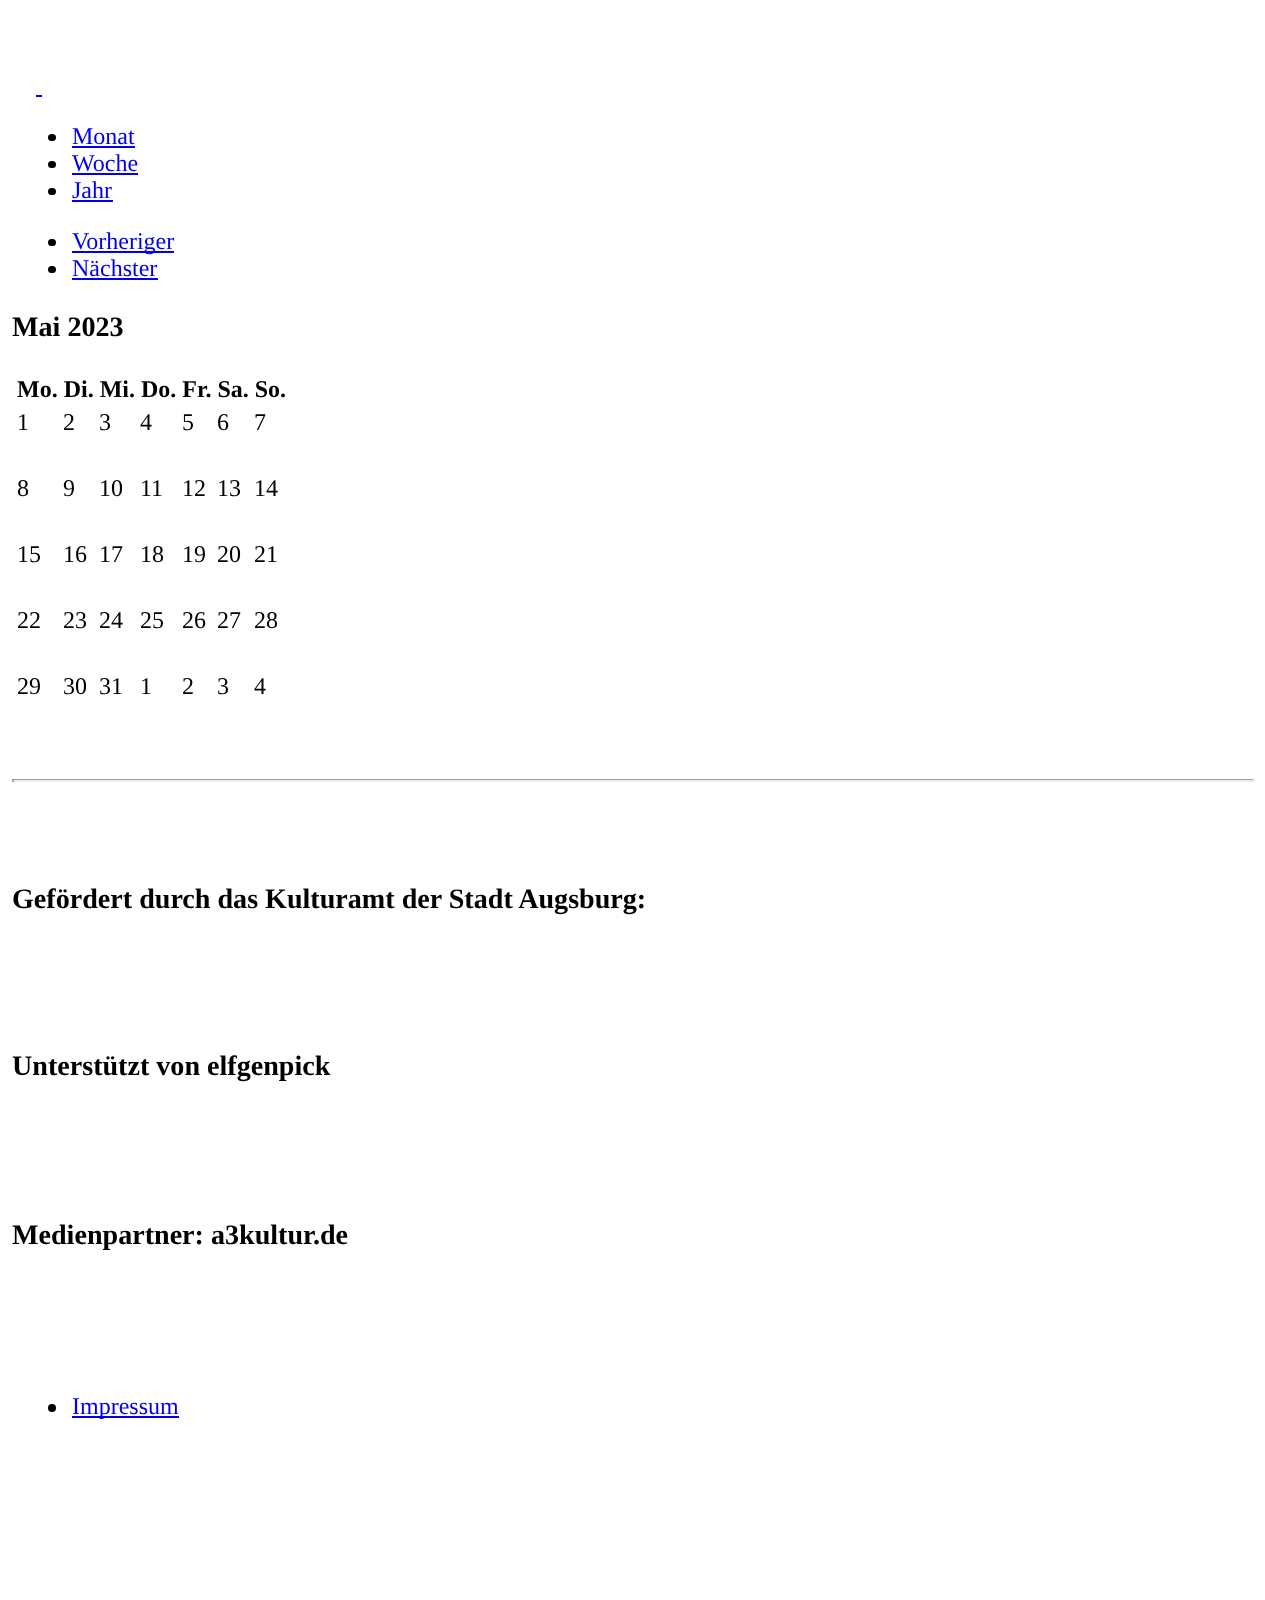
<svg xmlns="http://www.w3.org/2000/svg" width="1265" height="1600">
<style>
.a{font:24px Liberation Serif;fill:#00e}
.b{font:bold 28.1px Liberation Serif;fill:#000}
.c{font:bold 24px Liberation Serif;fill:#000}
.d{font:24px Liberation Serif;fill:#000}
</style>
<rect width="100%" height="100%" fill="#fff"/>
<path fill="#00e" d="M36 95h6v2H36z"/>
<rect fill="#000" x="48" y="134" width="8" height="7" rx="3.5"/>
<path fill="#00e" d="M72 146h63v2H72z"/>
<rect fill="#000" x="48" y="161" width="8" height="7" rx="3.5"/>
<path fill="#00e" d="M72 173h66v2H72z"/>
<rect fill="#000" x="48" y="188" width="8" height="7" rx="3.5"/>
<path fill="#00e" d="M72 200h41v2H72z"/>
<rect fill="#000" x="48" y="239" width="8" height="7" rx="3.5"/>
<path fill="#00e" d="M72 251h102v2H72z"/>
<rect fill="#000" x="48" y="266" width="8" height="7" rx="3.5"/>
<path fill="#00e" d="M72 278h86v2H72z"/>
<path fill="#9f9f9f" d="M12 779h1242v1H12z"/>
<path fill="#eee" d="M1253 779h2v3H1253z"/>
<path fill="#eee" d="M12 780h1242v2H12z"/>
<path fill="#9f9f9f" d="M12 779h2v3H12z"/>
<circle fill="#000" cx="52" cy="1408" r="4"/>
<path fill="#00e" d="M72 1416h107v2H72z"/>
<text class="a" x="72" y="144">Monat</text>
<text class="a" x="72" y="171">Woche</text>
<text class="a" x="72" y="198">Jahr</text>
<text class="a" x="72" y="249">Vorheriger</text>
<text class="a" x="72" y="276">Nächster</text>
<text class="b" x="12" y="336">Mai 2023</text>
<text class="c" x="17" y="397">Mo. Di. Mi. Do. Fr. Sa. So.</text>
<text class="d" x="17" y="430">1</text>
<text class="d" x="63" y="430">2</text>
<text class="d" x="99" y="430">3</text>
<text class="d" x="140" y="430">4</text>
<text class="d" x="182" y="430">5</text>
<text class="d" x="217" y="430">6</text>
<text class="d" x="254" y="430">7</text>
<text class="d" x="17" y="496">8</text>
<text class="d" x="63" y="496">9</text>
<text class="d" x="99" y="496">10</text>
<text class="d" x="140" y="496">11</text>
<text class="d" x="182" y="496">12</text>
<text class="d" x="217" y="496">13</text>
<text class="d" x="254" y="496">14</text>
<text class="d" x="17" y="562">15</text>
<text class="d" x="63" y="562">16</text>
<text class="d" x="99" y="562">17</text>
<text class="d" x="140" y="562">18</text>
<text class="d" x="182" y="562">19</text>
<text class="d" x="217" y="562">20</text>
<text class="d" x="254" y="562">21</text>
<text class="d" x="17" y="628">22</text>
<text class="d" x="63" y="628">23</text>
<text class="d" x="99" y="628">24</text>
<text class="d" x="140" y="628">25</text>
<text class="d" x="182" y="628">26</text>
<text class="d" x="217" y="628">27</text>
<text class="d" x="254" y="628">28</text>
<text class="d" x="17" y="694">29</text>
<text class="d" x="63" y="694">30</text>
<text class="d" x="99" y="694">31</text>
<text class="d" x="140" y="694">1</text>
<text class="d" x="182" y="694">2</text>
<text class="d" x="217" y="694">3</text>
<text class="d" x="254" y="694">4</text>
<text class="b" x="12" y="908">Gefördert durch das Kulturamt der Stadt Augsburg:</text>
<text class="b" x="12" y="1075">Unterstützt von elfgenpick</text>
<text class="b" x="12" y="1244">Medienpartner: a3kultur.de</text>
<text class="a" x="72" y="1414">Impressum</text>
</svg>
